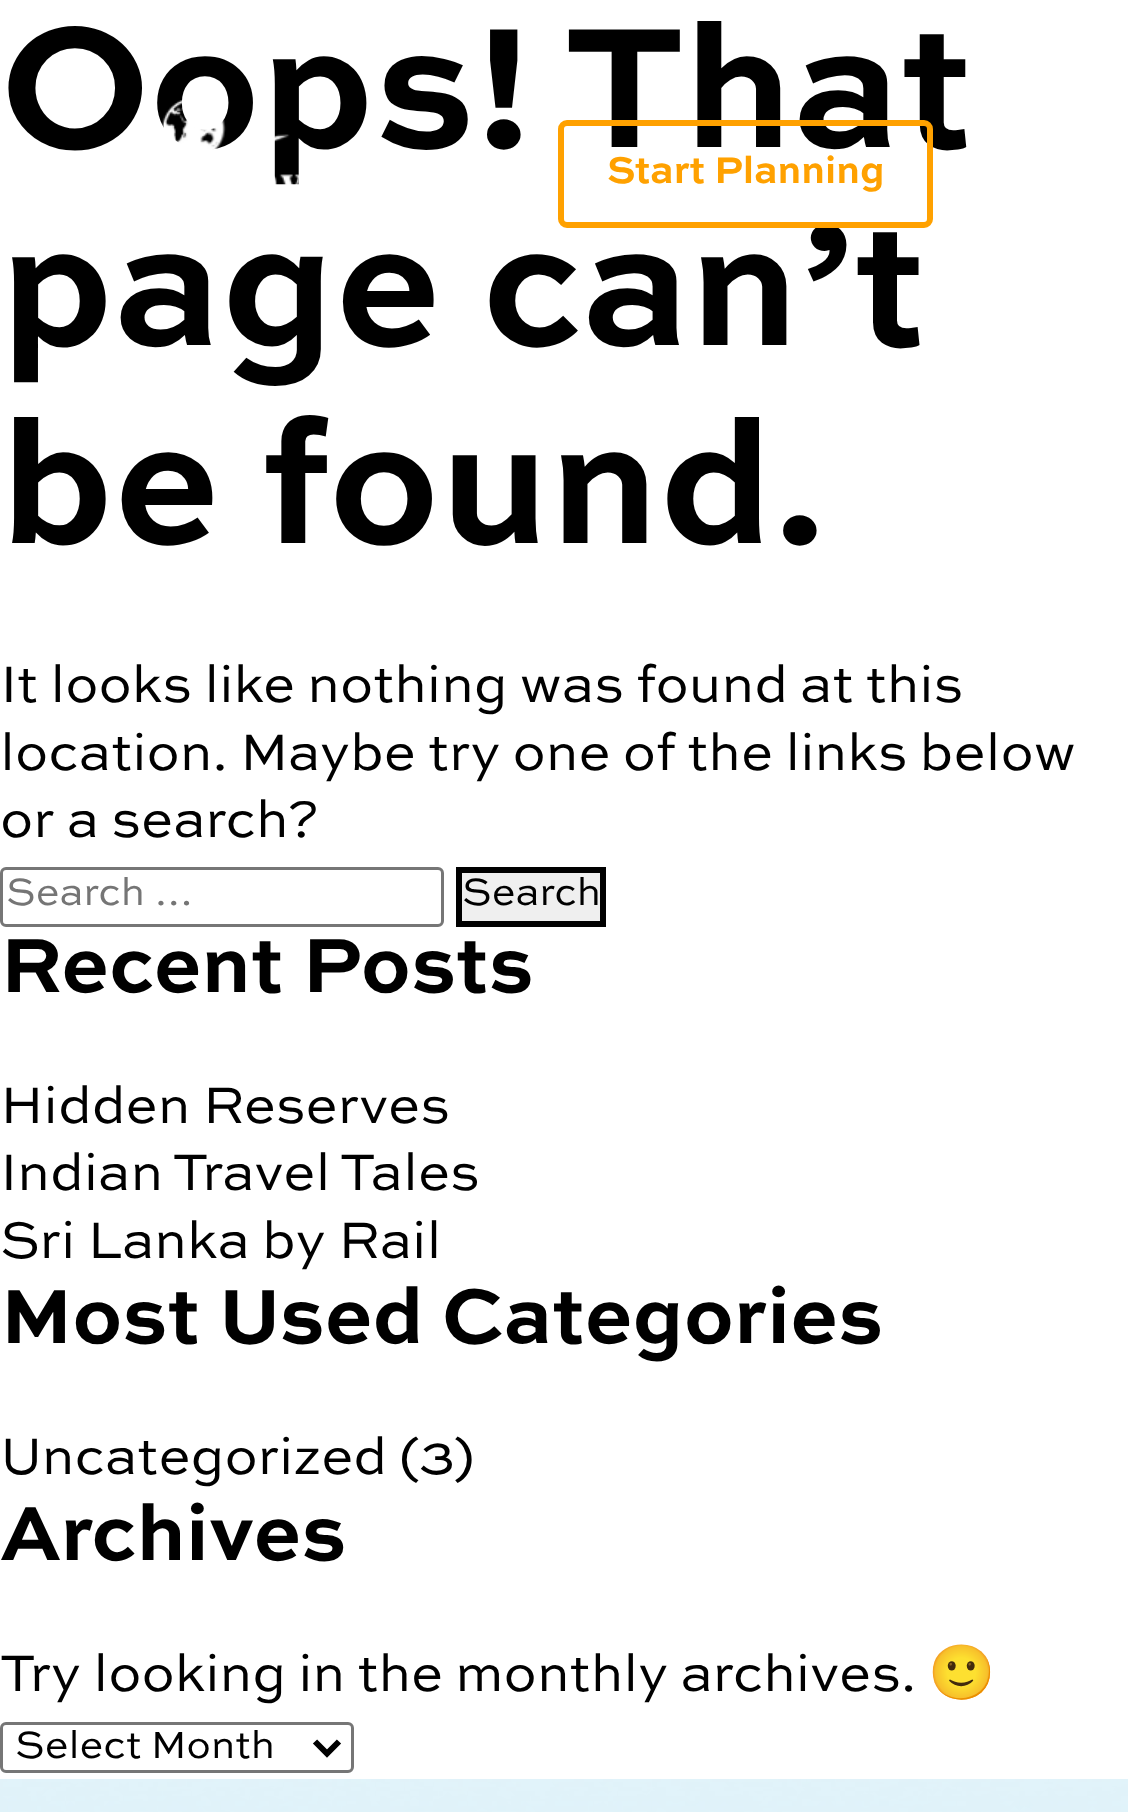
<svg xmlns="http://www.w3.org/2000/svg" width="1128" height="1812">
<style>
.a{font:bold 180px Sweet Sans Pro;fill:#000}
.b{font:54px Sweet Sans Pro;fill:#000}
.c{font:40px Sweet Sans Pro;fill:#757575}
.d{font:40px Sweet Sans Pro;fill:#000}
.e{font:bold 81px Sweet Sans Pro;fill:#000}
.f{font:54px Noto Color Emoji;fill:#000}
.g{font:bold 39px Sweet Sans Pro;fill:#ffa100}
</style>
<rect width="100%" height="100%" fill="#fff"/>
<rect fill="none" stroke="#767676" stroke-width="3" x="1.5" y="868.5" width="441" height="57" rx="4.5"/>
<path fill="#efefef" stroke="#000" stroke-width="6" d="M459 870h144v54H459z"/>
<rect fill="none" stroke="#767676" stroke-width="3" x="1.5" y="1723.5" width="351" height="48" rx="4.5"/>
<path fill="none" stroke="#000" stroke-width="6" d="M315 1741.5l12 12l12-12"/>
<image href="2.png" x="0" y="1779" width="1128" height="33"/>
<text class="a" x="0" y="147">Oops! That</text>
<text class="a" x="0" y="345">page can’t</text>
<text class="a" x="0" y="543">be found.</text>
<text class="b" x="0" y="702">It looks like nothing was found at this</text>
<text class="b" x="0" y="770">location. Maybe try one of the links below</text>
<text class="b" x="0" y="837">or a search?</text>
<text class="c" x="6" y="905">Search …</text>
<text class="d" x="462" y="905">Search</text>
<text class="e" x="0" y="992">Recent Posts</text>
<text class="b" x="0" y="1123">Hidden Reserves</text>
<text class="b" x="0" y="1190">Indian Travel Tales</text>
<text class="b" x="0" y="1258">Sri Lanka by Rail</text>
<text class="e" x="0" y="1343">Most Used Categories</text>
<text class="b" x="0" y="1474">Uncategorized (3)</text>
<text class="e" x="0" y="1560">Archives</text>
<text class="b" x="0" y="1691">Try looking in the monthly archives.</text>
<text class="f" x="928" y="1691">🙂</text>
<text class="d" x="15" y="1758">Select Month</text>
<image href="1.png" x="162" y="99" width="137" height="86"/>
<rect fill="none" stroke="#ffa100" stroke-width="6" x="561" y="123" width="369" height="102" rx="6"/>
<text class="g" x="607" y="183">Start Planning</text>
</svg>
